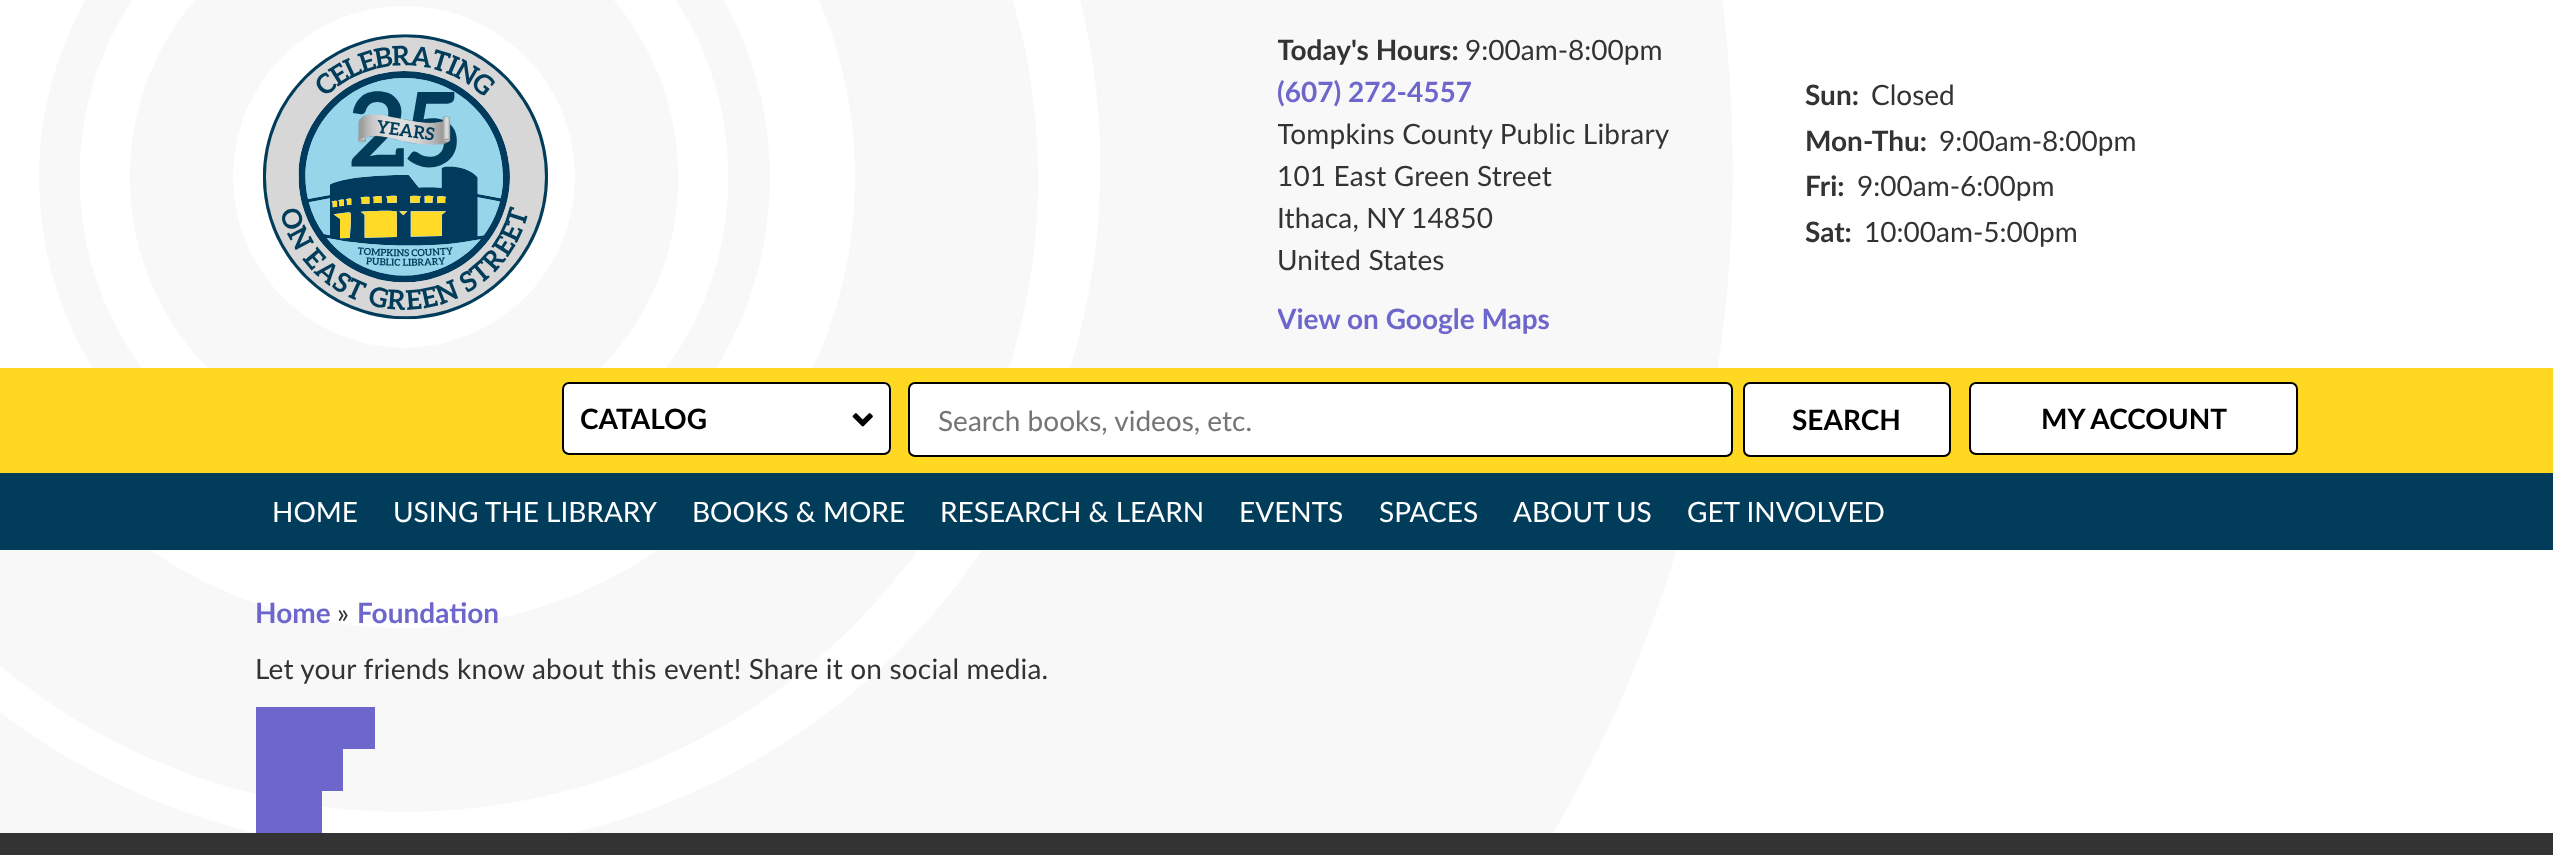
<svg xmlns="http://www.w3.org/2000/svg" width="2553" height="855">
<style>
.a{font:bold 28px Lato;fill:#333}
.b{font:28px Lato;fill:#333}
.c{font:bold 28px Lato;fill:#6d67cc}
.d{font:28px Lato;letter-spacing:0.18px;fill:#333}
.e{font:bold 28px Lato;fill:#000}
.f{font:28px Lato;fill:#757575}
.g{font:28px Lato;fill:#fff}
</style>
<defs>
<clipPath id="clip1"><path d="M1278 28h1022v340H1278z"/></clipPath>
</defs>
<rect width="100%" height="100%" fill="#fff"/>
<image href="1.png" x="0" y="0" width="1733" height="833"/>
<image href="2.png" x="263" y="34" width="285" height="286"/>
<path fill="#ffd921" d="M0 368h2553v105H0z"/>
<rect fill="#fff" x="562" y="382" width="329" height="73" rx="7"/>
<image href="3.png" x="852" y="413" width="21" height="14"/>
<rect fill="none" stroke="#000" stroke-width="2" x="563" y="383" width="327" height="71" rx="6"/>
<rect fill="#fff" stroke="#000" stroke-width="2" x="909" y="383" width="823" height="73" rx="6"/>
<rect fill="#fff" stroke="#000" stroke-width="2" x="1744" y="383" width="206" height="73" rx="6"/>
<rect fill="#fff" stroke="#000" stroke-width="2" x="1970" y="383" width="327" height="71" rx="6"/>
<path fill="#013d5b" d="M0 473h2553v77H0z"/>
<path fill="#6d67cc" d="M256 707h119v42H256z"/>
<path fill="#6d67cc" d="M256 749h87v42H256z"/>
<path fill="#6d67cc" d="M256 791h66v42H256z"/>
<path fill="#333" d="M0 833h2553v22H0z"/>
<g clip-path="url(#clip1)">
<text class="a" x="1277" y="60">Today's Hours:</text>
</g>
<text class="b" x="1465" y="60">9:00am-8:00pm</text>
<g clip-path="url(#clip1)">
<text class="c" x="1277" y="102">(607) 272-4557</text>
<text class="d" x="1277" y="144">Tompkins County Public Library</text>
</g>
<text class="d" x="1277" y="186">101 East Green Street</text>
<text class="d" x="1277" y="228">Ithaca, NY</text>
<text class="d" x="1411" y="228">14850</text>
<text class="d" x="1277" y="270">United States</text>
<g clip-path="url(#clip1)">
<text class="c" x="1277" y="329">View on Google Maps</text>
</g>
<text class="a" x="1805" y="105">Sun:</text>
<text class="b" x="1871" y="105">Closed</text>
<text class="a" x="1805" y="151">Mon-Thu:</text>
<text class="b" x="1939" y="151">9:00am-8:00pm</text>
<text class="a" x="1805" y="196">Fri:</text>
<text class="b" x="1857" y="196">9:00am-6:00pm</text>
<text class="a" x="1805" y="242">Sat:</text>
<text class="b" x="1864" y="242">10:00am-5:00pm</text>
<text class="e" x="580" y="429">CATALOG</text>
<text class="f" x="938" y="431">Search books, videos, etc.</text>
<text class="e" x="1792" y="430">SEARCH</text>
<text class="e" x="2041" y="429">MY ACCOUNT</text>
<text class="g" x="272" y="522">HOME</text>
<text class="g" x="393" y="522">USING THE LIBRARY</text>
<text class="g" x="692" y="522">BOOKS &amp; MORE</text>
<text class="g" x="940" y="522">RESEARCH &amp; LEARN</text>
<text class="g" x="1239" y="522">EVENTS</text>
<text class="g" x="1379" y="522">SPACES</text>
<text class="g" x="1513" y="522">ABOUT US</text>
<text class="g" x="1687" y="522">GET INVOLVED</text>
<text class="c" x="255" y="623">Home</text>
<text class="b" x="337" y="623">»</text>
<text class="c" x="357" y="623">Foundation</text>
<text class="d" x="255" y="679">Let your friends know about this event! Share it on social media.</text>
</svg>
